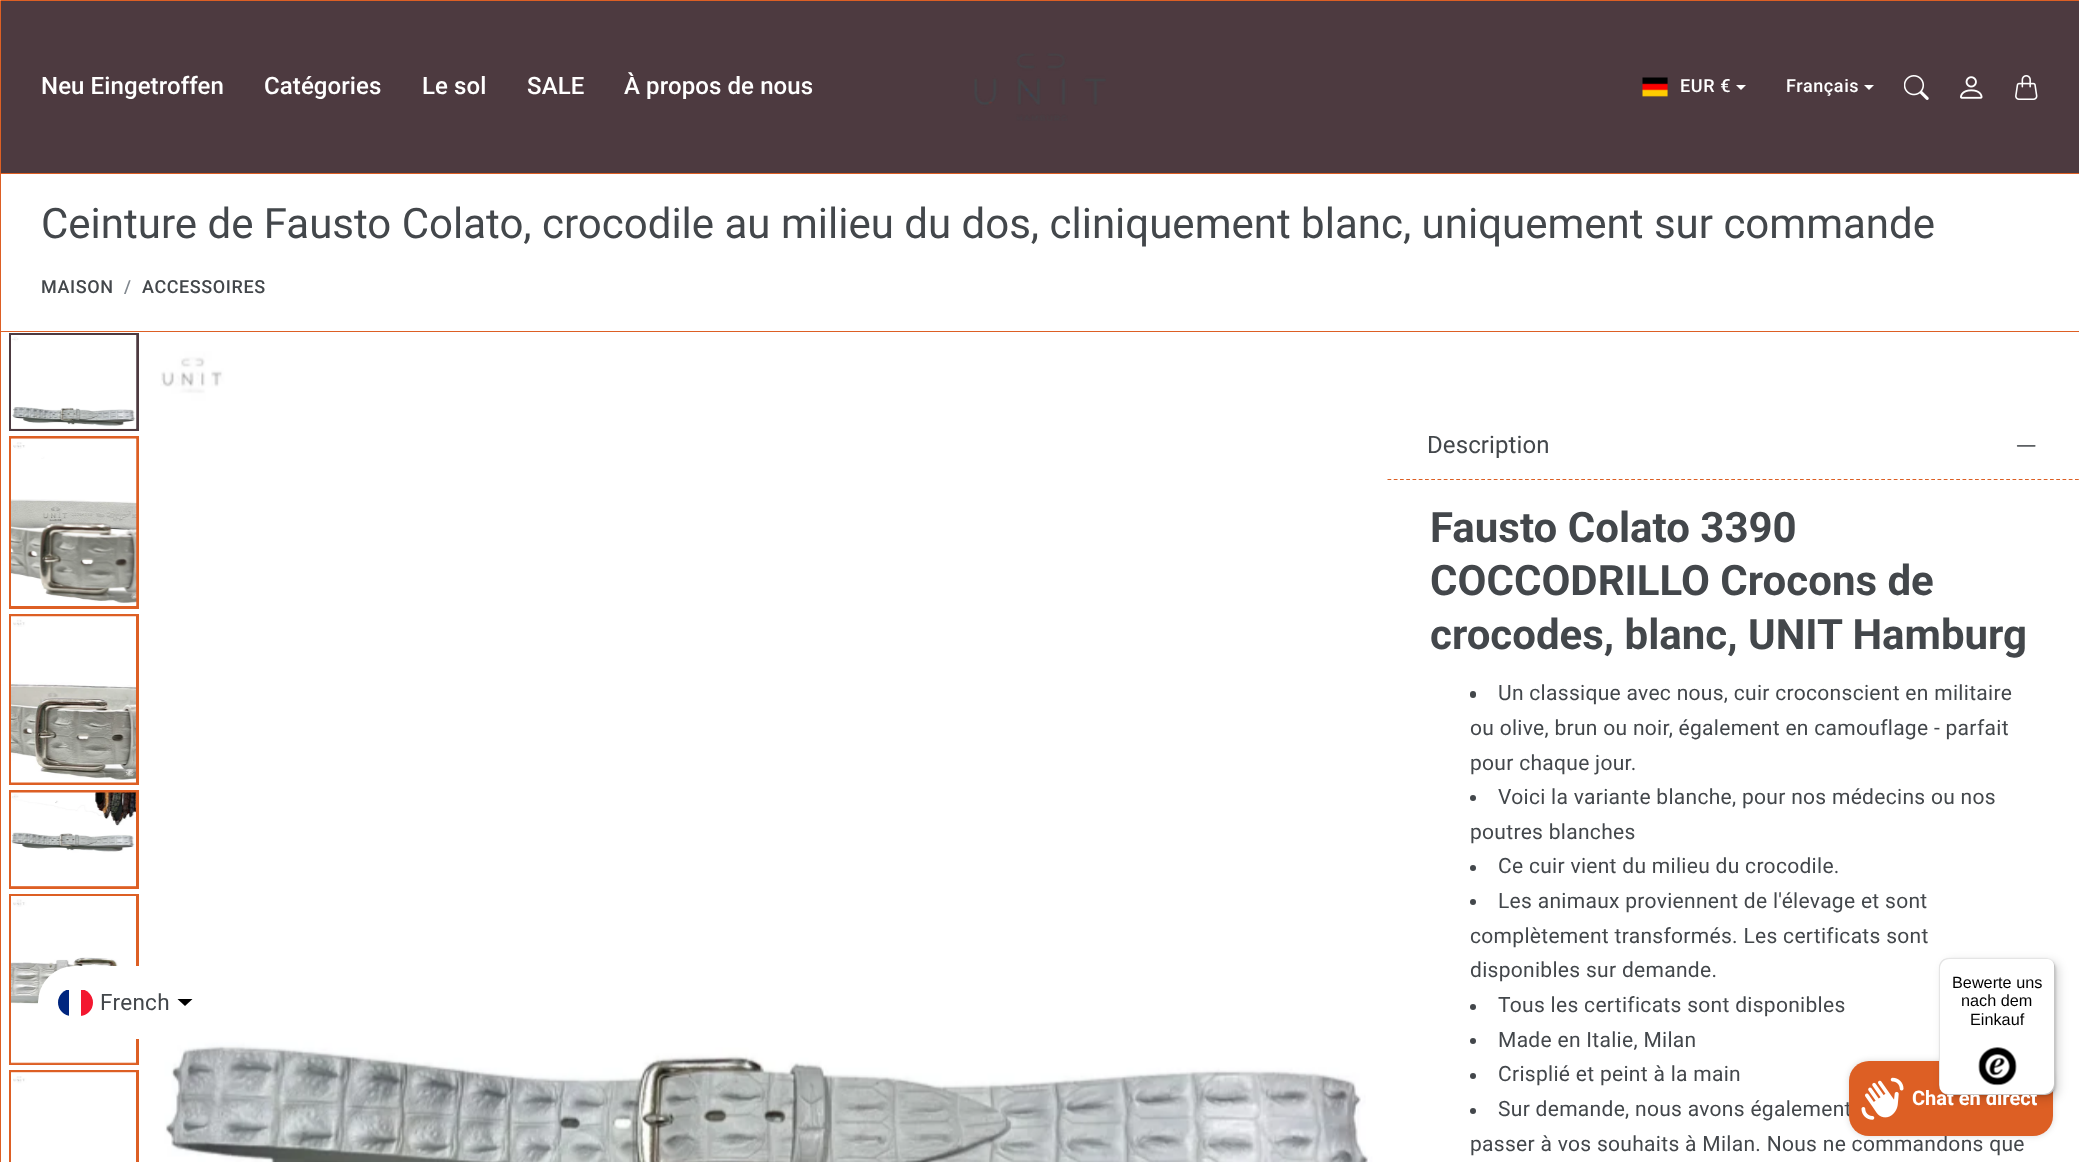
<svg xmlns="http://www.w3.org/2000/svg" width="2079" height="1162">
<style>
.a{font:500 24px Roboto;letter-spacing:0.1px;fill:#fff}
.b{font:500 18px Roboto;letter-spacing:0.6px;fill:#fff}
.c{font:42px Roboto;fill:#43474b}
.d{font:500 18px Roboto;letter-spacing:0.6px;fill:#43474b}
.e{font:500 18px Roboto;letter-spacing:0.6px;fill:#80878e}
.f{font:24px Roboto;letter-spacing:0.1px;fill:#43474b}
.g{font:bold 42px Roboto;fill:#43474b}
.h{font:21px Roboto;letter-spacing:0.3px;fill:#43474b}
.i{font:22.5px Roboto;letter-spacing:0.3px;fill:#43474b}
.j{font:bold 20px Roboto;fill:#fff}
.k{font:16.25px Liberation Sans;fill:#000}
</style>
<defs>
<clipPath id="clip1"><rect x="58" y="989" width="35" height="27" rx="13.5"/></clipPath>
</defs>
<rect width="100%" height="100%" fill="#fff"/>
<path fill="none" stroke="#dd5f24" d="M0.5 0.5h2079v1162H0.5z"/>
<path fill="#4d3a40" d="M1 1h2078v172H1z"/>
<path fill="#dd5f24" d="M1 173h2078v1H1z"/>
<image href="1.png" x="974" y="53" width="132" height="68"/>
<image href="2.png" x="1642" y="77" width="26" height="20"/>
<path fill="#fff" d="M1736 85h10l-5 5z"/>
<path fill="#fff" d="M1864 85h10l-5 5z"/>
<image href="3.png" x="1904" y="75" width="25" height="25"/>
<image href="4.png" x="1960" y="76" width="23" height="23"/>
<image href="5.png" x="2015" y="75" width="23" height="25"/>
<path fill="#dd5f24" d="M1 331h2078v1H1z"/>
<path fill="none" stroke="#4d3a40" stroke-width="3" d="M10.5 334.5h127v95H10.5z"/>
<image href="6.png" x="11" y="335" width="126" height="94"/>
<image href="7.png" x="11" y="335" width="125" height="94"/>
<path fill="none" stroke="#dd5f24" stroke-width="3" d="M10.5 437.5h127v170H10.5z"/>
<image href="8.png" x="11" y="438" width="126" height="168"/>
<image href="9.png" x="11" y="438" width="125" height="168"/>
<path fill="none" stroke="#dd5f24" stroke-width="3" d="M10.5 615.5h127v168H10.5z"/>
<image href="10.png" x="11" y="616" width="125" height="167"/>
<path fill="none" stroke="#dd5f24" stroke-width="3" d="M10.5 791.5h127v96H10.5z"/>
<image href="11.png" x="11" y="792" width="125" height="95"/>
<path fill="none" stroke="#dd5f24" stroke-width="3" d="M10.5 895.5h127v168H10.5z"/>
<image href="12.png" x="11" y="896" width="125" height="168"/>
<image href="13.png" x="11" y="903" width="125" height="160"/>
<path fill="none" stroke="#dd5f24" stroke-width="3" d="M10.5 1071.5h127v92H10.5z"/>
<image href="14.png" x="11" y="1072" width="125" height="90"/>
<image href="15.png" x="11" y="1072" width="125" height="9"/>
<image href="16.png" x="160" y="333" width="1227" height="829"/>
<image href="17.png" x="163" y="359" width="1204" height="803"/>
<image href="18.png" x="2016" y="445" width="20" height="2"/>
<path fill="none" stroke="#dd5f24" stroke-width="1.2" stroke-dasharray="3.75 2.5" d="M1387.5 479.5h691.5"/>
<rect fill="#43474b" x="1470" y="691" width="6" height="7" rx="3"/>
<circle fill="#43474b" cx="1473" cy="798" r="3"/>
<circle fill="#43474b" cx="1473" cy="868" r="3"/>
<circle fill="#43474b" cx="1473" cy="902" r="3"/>
<circle fill="#43474b" cx="1473" cy="1007" r="3"/>
<circle fill="#43474b" cx="1473" cy="1041" r="3"/>
<circle fill="#43474b" cx="1473" cy="1076" r="3"/>
<circle fill="#43474b" cx="1473" cy="1111" r="3"/>
<rect fill="#fff" x="38" y="966" width="175" height="73" rx="36.5"/>
<g clip-path="url(#clip1)">
<path fill="#00267f" d="M58 990h11v26H58z"/>
<path fill="#f31830" d="M81 990h12v26H81z"/>
</g>
<path fill="#000" d="M177.5 999h15l-7.5 7z"/>
<rect fill="#00000026" filter="blur(3px)" x="1849" y="1061" width="204" height="75" rx="20"/>
<text class="a" x="41" y="94">Neu Eingetroffen</text>
<text class="a" x="264" y="94">Catégories</text>
<text class="a" x="422" y="94">Le sol</text>
<text class="a" x="527" y="94">SALE</text>
<text class="a" x="624" y="94">À propos de nous</text>
<text class="b" x="1680" y="92">EUR €</text>
<text class="b" x="1786" y="92">Français</text>
<text class="c" x="41" y="238">Ceinture de Fausto Colato, crocodile au milieu du dos, cliniquement blanc, uniquement sur commande</text>
<text class="d" x="41" y="293">MAISON</text>
<text class="e" x="124" y="293">/</text>
<text class="d" x="142" y="293">ACCESSOIRES</text>
<text class="f" x="1427" y="453">Description</text>
<text class="g" x="1430" y="542">Fausto Colato 3390</text>
<text class="g" x="1430" y="595">COCCODRILLO Crocons de</text>
<text class="g" x="1430" y="649">crocodes, blanc, UNIT Hamburg</text>
<text class="h" x="1498" y="700">Un classique avec nous, cuir croconscient en militaire</text>
<text class="h" x="1470" y="735">ou olive, brun ou noir, également en camouflage - parfait</text>
<text class="h" x="1470" y="770">pour chaque jour.</text>
<text class="h" x="1498" y="804">Voici la variante blanche, pour nos médecins ou nos</text>
<text class="h" x="1470" y="839">poutres blanches</text>
<text class="h" x="1498" y="873">Ce cuir vient du milieu du crocodile.</text>
<text class="h" x="1498" y="908">Les animaux proviennent de l'élevage et sont</text>
<text class="h" x="1470" y="943">complètement transformés. Les certificats sont</text>
<text class="h" x="1470" y="977">disponibles sur demande.</text>
<text class="h" x="1498" y="1012">Tous les certificats sont disponibles</text>
<text class="h" x="1498" y="1047">Made en Italie, Milan</text>
<text class="h" x="1498" y="1081">Crisplié et peint à la main</text>
<text class="h" x="1498" y="1116">Sur demande, nous avons également</text>
<text class="h" x="1470" y="1151">passer à vos souhaits à Milan. Nous ne commandons que</text>
<text class="i" x="100" y="1010">French</text>
<rect fill="#dd5f24" x="1849" y="1061" width="204" height="75" rx="20"/>
<rect fill="#00000026" filter="blur(1px)" x="1940" y="959" width="116" height="137" rx="10"/>
<rect fill="#00000026" filter="blur(5px)" x="1943" y="961" width="116" height="138" rx="10"/>
<rect fill="#fff" x="1939" y="958" width="116" height="137" rx="10"/>
<path fill="#0000001a" d="M1950 959h96c2 0 4 0 5 1c-1-1-4-2-6-2h-96c-6 0-10 4-10 10v117c0 2 1 5 2 6c-1-1-1-3-1-5v-117c0-6 4-10 10-10z"/>
<image href="20.png" x="1861" y="1077" width="43" height="43"/>
<text class="j" x="1912" y="1105">Chat en direct</text>
<path fill="#00000033" d="M1941 1092c2 2 5 3 8 3h96c6 0 10-4 10-10v-117c0-2-1-4-2-6c1 1 1 3 1 4v118c0 5-5 10-10 10h-96c-3 0-5-1-7-2z"/>
<path fill="#32323233" d="M1943 1093c1 1 4 2 6 2h96c6 0 10-4 10-10v-117c0-2-1-5-2-6c1 1 1 3 1 5v117c0 6-4 10-10 10h-96c-2 0-4 0-5-1z"/>
<path fill="#ffffff4d" d="M1941 1091c2 3 5 4 8 4h96c6 0 10-4 10-10v-117c0-2-1-5-2-6c1 1 1 3 1 5v117c0 6-4 10-10 10h-96c-2 0-5-1-7-3z"/>
<image href="19.png" x="1978" y="1047" width="39" height="39"/>
<text class="k" x="1970" y="1025">Einkauf</text>
<text class="k" x="1961" y="1006">nach dem</text>
<text class="k" x="1952" y="988">Bewerte uns</text>
</svg>
